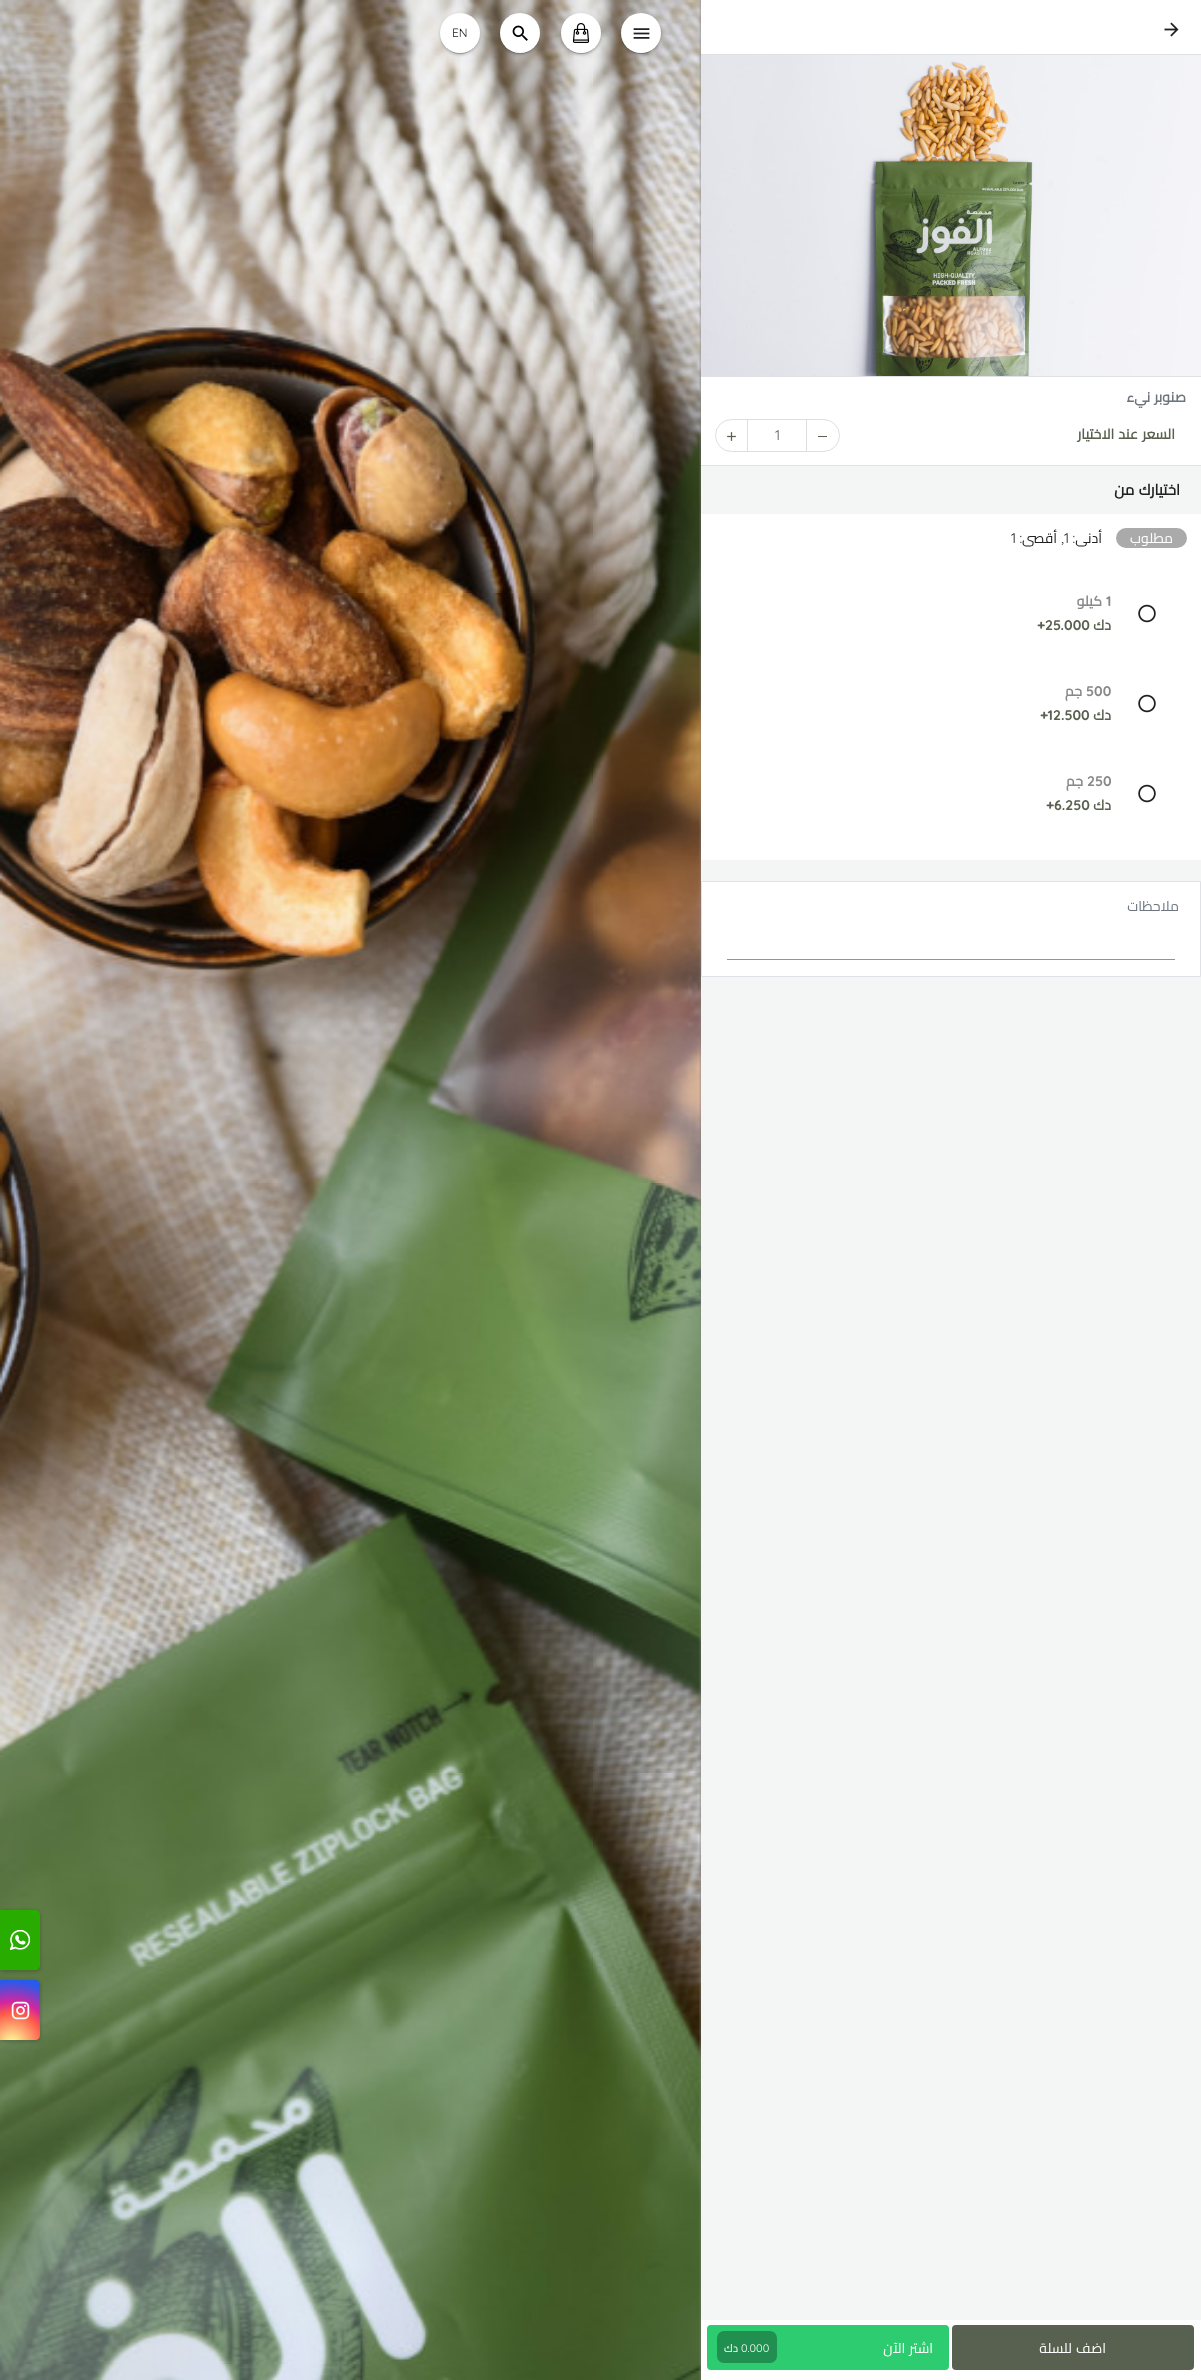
<svg xmlns="http://www.w3.org/2000/svg" width="1201" height="2380">
<style>
.a{font:300 12px Quicksand;fill:#202020}
.b{font:bold 14px Cairo;direction:rtl;fill:#6c757d}
.c{font:bold 14px Cairo;direction:rtl;fill:#586150}
.d{font:300 14px Quicksand;fill:#586150}
.e{font:bold 15px Cairo;direction:rtl;fill:#202020}
.f{font:14px Cairo;direction:rtl;fill:#fff}
.g{font:14px Cairo;direction:rtl;fill:#202020}
.h{font:300 14px Quicksand;direction:rtl;fill:#202020}
.i{font:300 14px Quicksand;fill:#202020}
.j{font:300 14px 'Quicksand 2';fill:#888}
.k{font:bold 14px Cairo;direction:rtl;fill:#888}
.l{font:300 14px 'Quicksand 2';fill:#586150}
.m{font:14px Cairo;direction:rtl;fill:#6c757d}
.n{font:300 11px Quicksand;fill:#fff}
.o{font:11px Cairo;direction:rtl;fill:#fff}
</style>
<defs>
<radialGradient id="g1" gradientUnits="userSpaceOnUse" cx="12" cy="2044" r="70"><stop offset="0" stop-color="#fdf497"/><stop offset="0.05" stop-color="#fdf497"/><stop offset="0.45" stop-color="#fd5949"/><stop offset="0.6" stop-color="#d6249f"/><stop offset="0.9" stop-color="#285aeb"/></radialGradient>
</defs>
<rect width="100%" height="100%" fill="#f4f5f5"/>
<path fill="#808080" d="M699 0h2v2380H699z"/>
<image href="1.png" x="0" y="0" width="701" height="2380"/>
<rect fill="#0000001f" filter="blur(2.5px)" x="621" y="14" width="40" height="40" rx="20"/>
<rect fill="#00000024" filter="blur(1px)" x="621" y="15" width="40" height="40" rx="20"/>
<rect fill="#00000033" filter="blur(0.5px)" x="623" y="18" width="36" height="36" rx="18"/>
<circle fill="#fff" cx="641" cy="33" r="20"/>
<image href="2.png" x="633" y="28" width="17" height="11"/>
<rect fill="#0000001f" filter="blur(2.5px)" x="561" y="14" width="40" height="40" rx="20"/>
<rect fill="#00000024" filter="blur(1px)" x="561" y="15" width="40" height="40" rx="20"/>
<rect fill="#00000033" filter="blur(0.5px)" x="563" y="18" width="36" height="36" rx="18"/>
<circle fill="#fff" cx="581" cy="33" r="20"/>
<image href="3.png" x="572" y="23" width="18" height="20"/>
<rect fill="#0000001f" filter="blur(2.5px)" x="500" y="14" width="40" height="40" rx="20"/>
<rect fill="#00000024" filter="blur(1px)" x="500" y="15" width="40" height="40" rx="20"/>
<rect fill="#00000033" filter="blur(0.5px)" x="502" y="18" width="36" height="36" rx="18"/>
<circle fill="#fff" cx="520" cy="33" r="20"/>
<image href="4.png" x="512" y="25" width="16" height="16"/>
<rect fill="#0000001f" filter="blur(2.5px)" x="440" y="14" width="40" height="40" rx="20"/>
<rect fill="#00000024" filter="blur(1px)" x="440" y="15" width="40" height="40" rx="20"/>
<rect fill="#00000033" filter="blur(0.5px)" x="442" y="18" width="36" height="36" rx="18"/>
<circle fill="#fff" cx="460" cy="33" r="20"/>
<path fill="#fff" d="M701 0h500v54H701z"/>
<path fill="#dee2e6" d="M701 54h500v1H701z"/>
<image href="5.png" x="1164" y="22" width="15" height="15"/>
<image href="6.png" x="701" y="55" width="500" height="321"/>
<path fill="#fff" d="M701 377h500v88H701z"/>
<path fill="#dee2e6" d="M701 376h500v1H701z"/>
<path fill="#dee2e6" d="M701 465h500v1H701z"/>
<rect fill="none" stroke="#dedede" x="715.5" y="419.5" width="124" height="32" rx="16"/>
<path fill="#586150" d="M818 436h9v1H818z"/>
<path fill="#dedede" d="M806 419h1v32H806z"/>
<path fill="#dedede" d="M747 419h1v32H747z"/>
<image href="7.png" x="727" y="432" width="9" height="9"/>
<path fill="#fff" d="M701 514h500v346H701z"/>
<rect fill="#aaa" x="1116" y="528" width="71" height="20" rx="10"/>
<image href="8.png" x="1138" y="604" width="18" height="19"/>
<image href="8.png" x="1138" y="694" width="18" height="19"/>
<image href="8.png" x="1138" y="784" width="18" height="19"/>
<path fill="#fff" stroke="#dee2e6" d="M701.5 881.5h499v95H701.5z"/>
<path fill="#949494" d="M727 959h448v1H727z"/>
<path fill="#fff" d="M701 2320h500v60H701z"/>
<rect fill="#586150" x="952" y="2325" width="242" height="45" rx="4"/>
<rect fill="#2ecc71" x="707" y="2325" width="242" height="45" rx="4"/>
<rect fill="#208f4f" x="717" y="2331" width="60" height="32" rx="7"/>
<rect fill="#00000026" filter="blur(1.5px)" x="-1" y="1910" width="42" height="62" rx="6"/>
<path fill="#29ac00" d="M0 1910h35c3 0 5 2 5 5v50c0 3-2 5-5 5h-35z"/>
<image href="9.png" x="10" y="1911" width="30" height="58"/>
<rect fill="#00000026" filter="blur(1.5px)" x="-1" y="1980" width="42" height="62" rx="6"/>
<path fill="url(#g1)" d="M0 1980h35c3 0 5 2 5 5v50c0 3-2 5-5 5h-35z"/>
<image href="10.png" x="11" y="2001" width="19" height="19"/>
<text class="a" x="452" y="37">EN</text>
<text class="b" x="1186" y="402" word-spacing="1">صنوبر نيء</text>
<text class="c" x="1175" y="439" word-spacing="1">السعر عند الاختيار</text>
<text class="d" x="775" y="440">1</text>
<text class="e" x="1180" y="495" word-spacing="1">اختيارك من</text>
<text class="f" x="1173" y="543">مطلوب</text>
<text class="g" x="1102" y="543">أدنى</text>
<text class="h" x="1075" y="543">:</text>
<text class="i" x="1064" y="543">1</text>
<text class="g" x="1057" y="543">أقصى</text>
<text class="h" x="1022" y="543">:</text>
<text class="i" x="1011" y="543">1</text>
<text class="h" x="1064" y="543">,</text>
<text class="j" x="1106" y="606">1</text>
<text class="k" x="1102" y="606">كيلو</text>
<text class="c" x="1111" y="630">دك</text>
<text class="l" x="1037" y="630">+25.000</text>
<text class="j" x="1086" y="696">500</text>
<text class="k" x="1082" y="696">جم</text>
<text class="c" x="1111" y="720">دك</text>
<text class="l" x="1040" y="720">+12.500</text>
<text class="j" x="1087" y="786">250</text>
<text class="k" x="1083" y="786">جم</text>
<text class="c" x="1111" y="810">دك</text>
<text class="l" x="1046" y="810">+6.250</text>
<text class="m" x="1179" y="911">ملاحظات</text>
<text class="f" x="1106" y="2353" word-spacing="1">اضف للسلة</text>
<text class="f" x="933" y="2353" word-spacing="1">اشتر الآن</text>
<text class="n" x="741" y="2352">0.000</text>
<text class="o" x="738" y="2352">دك</text>
</svg>
